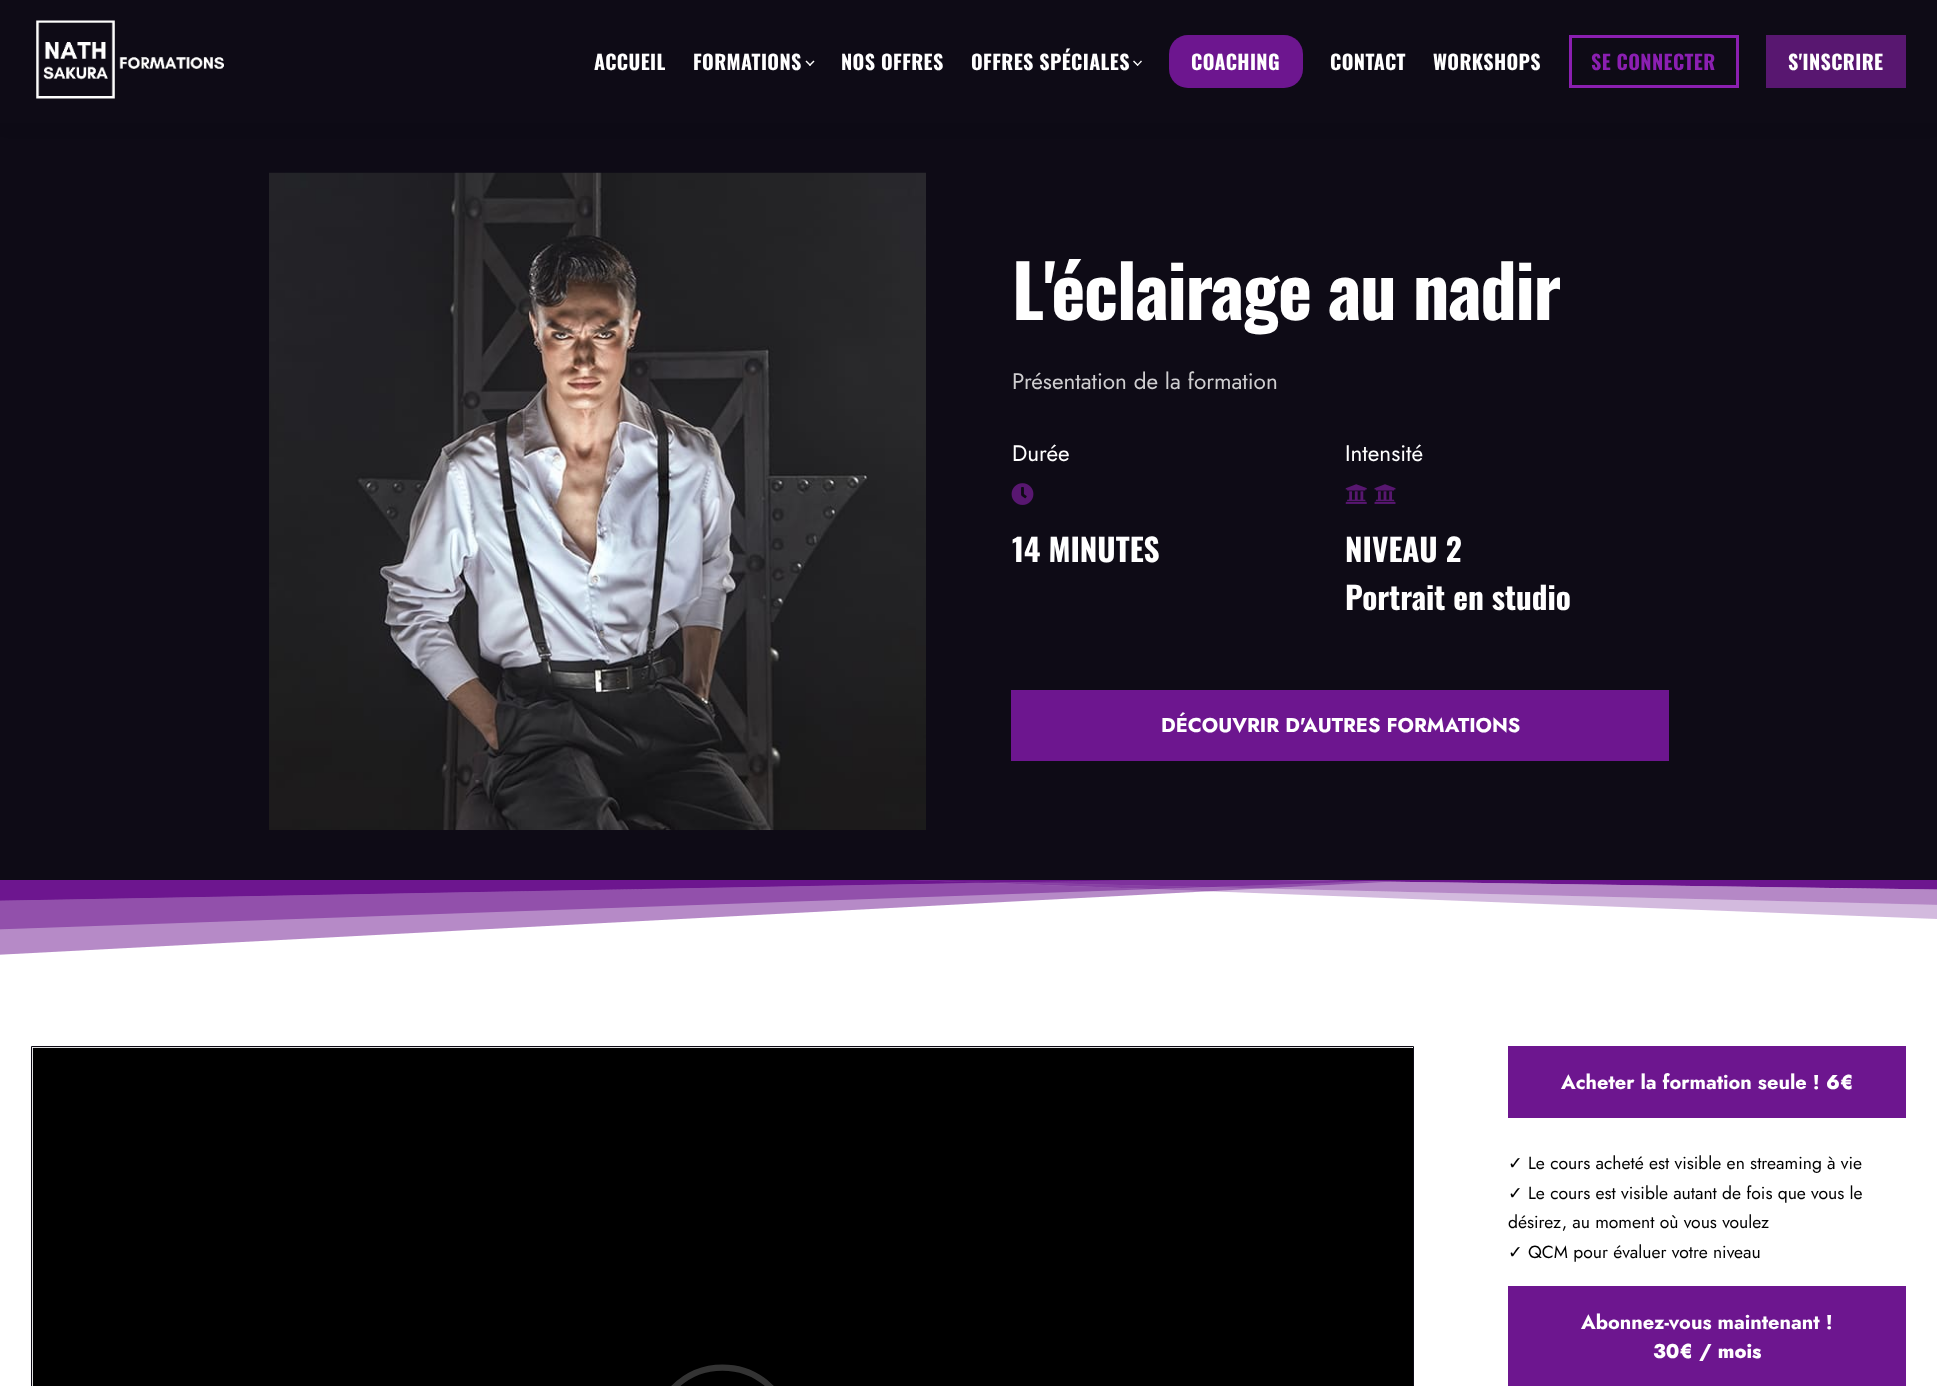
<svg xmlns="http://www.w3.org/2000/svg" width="1937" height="1386">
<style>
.a{font:bold 20px Oswald;letter-spacing:0.4px;fill:#fff}
.b{font:bold 20px Oswald;letter-spacing:0.4px;fill:#8b1fb1}
.c{font:bold 72.5px Oswald;letter-spacing:-1.25px;fill:#fff}
.d{font:22.5px Jost;fill:#cfced0}
.e{font:22.5px Jost;fill:#fff}
.f{font:bold 31.25px Oswald;fill:#fff}
.g{font:bold 20px Jost;fill:#fff}
.h{font:800 20px Jost;fill:#fff}
.i{font:17.5px DejaVu Sans;fill:#000}
.j{font:17.5px Jost;fill:#000}
</style>
<rect width="100%" height="100%" fill="#fff"/>
<path fill="#0e0b16" d="M0 123h1937v757H0z"/>
<path fill="#0000000d" filter="blur(9.5px)" d="M0 0h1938v123H0z"/>
<path fill="#0e0b16" d="M0 0h1937v123H0z"/>
<image href="1.png" x="36" y="20" width="188" height="79"/>
<path fill="#fff" d="M814.5 61.5l-4.5 4.5l-1-1l4.5-4.5z"/>
<path fill="#fff" d="M811 65l-1 1l-4.5-4.5l1-1z"/>
<path fill="#fff" d="M1142 61.5l-4.5 4.5l-.5-1l4-4.5z"/>
<path fill="#fff" d="M1138.5 65l-1 1l-4.5-4.5l1-1z"/>
<rect fill="#6d168f" x="1169" y="35" width="134" height="53" rx="19"/>
<path fill="none" stroke="#8b1fb1" stroke-width="3" d="M1570.5 36.5h167v50H1570.5z"/>
<path fill="#581770" d="M1766 35h140v53H1766z"/>
<image href="2.png" x="269" y="172" width="657" height="658"/>
<image href="3.png" x="1011" y="483" width="23" height="22"/>
<image href="4.png" x="1345" y="484" width="22" height="20"/>
<image href="5.png" x="1374" y="484" width="22" height="20"/>
<path fill="#6d168f" d="M1011 690h658v71H1011z"/>
<image href="6.png" x="0" y="880" width="1937" height="75"/>
<path fill="none" stroke="#0e0b16" d="M31.5 1046.5h1382v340H31.5z"/>
<path fill="#000" d="M1412 1048h1v338H1412z"/>
<image href="7.png" x="32" y="1047" width="1380" height="339"/>
<path fill="#6d168f" d="M1508 1046h398v72H1508z"/>
<path fill="#6d168f" d="M1508 1286h398v100H1508z"/>
<text class="a" x="594" y="70">ACCUEIL</text>
<text class="a" x="693" y="70">FORMATIONS</text>
<text class="a" x="841" y="70">NOS OFFRES</text>
<text class="a" x="971" y="70">OFFRES SPÉCIALES</text>
<text class="a" x="1191" y="70">COACHING</text>
<text class="a" x="1330" y="70">CONTACT</text>
<text class="a" x="1433" y="70">WORKSHOPS</text>
<text class="b" x="1591" y="70">SE CONNECTER</text>
<text class="a" x="1788" y="70">S'INSCRIRE</text>
<text class="c" x="1012" y="320">L'éclairage au nadir</text>
<text class="d" x="1012" y="389">Présentation de la formation</text>
<text class="e" x="1012" y="461">Durée</text>
<text class="f" x="1012" y="562">14 MINUTES</text>
<text class="e" x="1345" y="461">Intensité</text>
<text class="f" x="1345" y="562">NIVEAU 2</text>
<text class="f" x="1345" y="610">Portrait en studio</text>
<text class="g" x="1161" y="732">DÉCOUVRIR D'AUTRES FORMATIONS</text>
<text class="g" x="1561" y="1089">Acheter la formation seule !</text>
<text class="h" x="1826" y="1089">6€</text>
<text class="i" x="1508" y="1169">✓</text>
<text class="j" x="1528" y="1169">Le cours acheté est visible en streaming à vie</text>
<text class="i" x="1508" y="1199">✓</text>
<text class="j" x="1528" y="1199">Le cours est visible autant de fois que vous le</text>
<text class="j" x="1508" y="1228">désirez, au moment où vous voulez</text>
<text class="i" x="1508" y="1258">✓</text>
<text class="j" x="1528" y="1258">QCM pour évaluer votre niveau</text>
<text class="g" x="1581" y="1329">Abonnez-vous maintenant !</text>
<text class="h" x="1653" y="1358">30€ / mois</text>
</svg>
